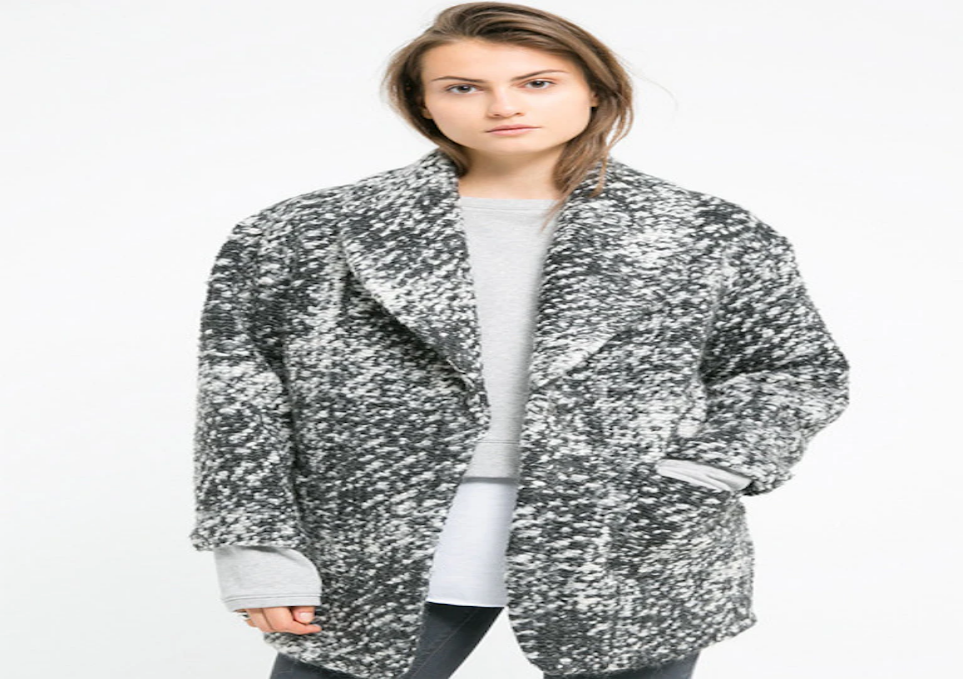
<svg xmlns="http://www.w3.org/2000/svg" width="963" height="679">
<rect width="100%" height="100%" fill="#fff"/>
<image href="1.png" x="0" y="0" width="963" height="679"/>
</svg>
